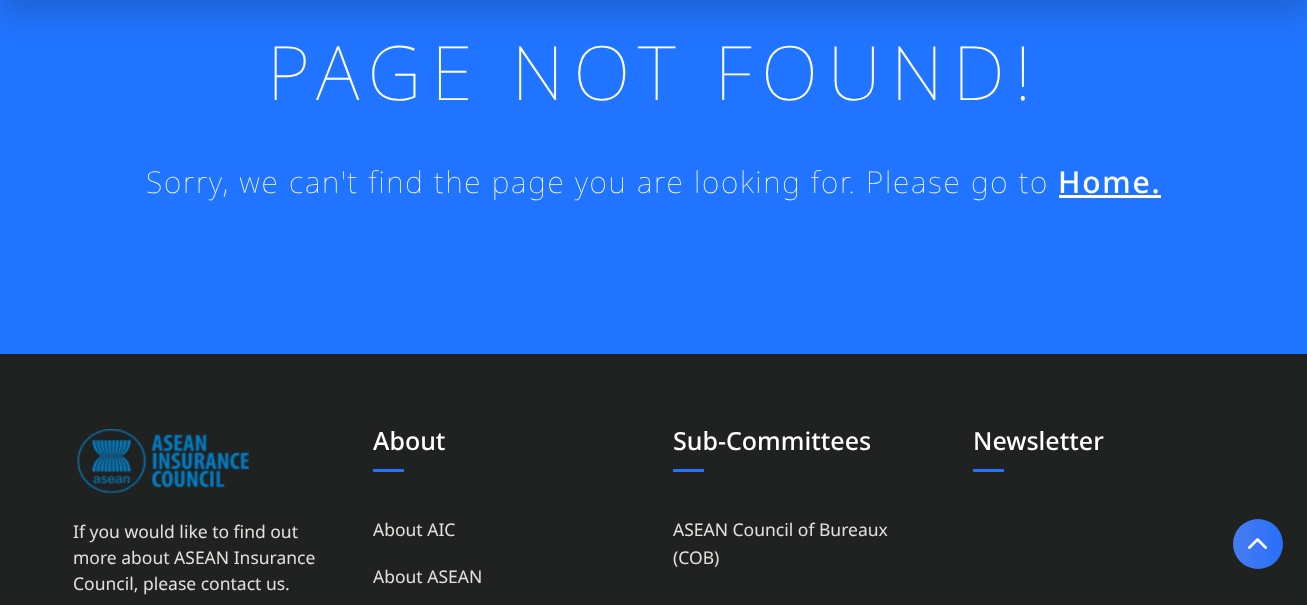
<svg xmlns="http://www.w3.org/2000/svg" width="1307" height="605">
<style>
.a{font:100 75px Noto Sans;letter-spacing:9.75px;fill:#fff}
.b{font:100 30px Noto Sans;letter-spacing:1.75px;fill:#fff}
.c{font:500 30px Noto Sans;letter-spacing:1.75px;fill:#fff}
.d{font:500 25px Noto Sans;fill:#fff}
.e{font:17.5px Noto Sans;fill:#e2e0db}
</style>
<defs>
<linearGradient id="g1" gradientUnits="userSpaceOnUse" x1="1233" y1="544" x2="1283" y2="544"><stop offset="0" stop-color="#487cf0"/><stop offset="1" stop-color="#286ffa"/></linearGradient>
</defs>
<rect width="100%" height="100%" fill="#2174ff"/>
<path fill="#18171833" filter="blur(15.5px)" d="M0 -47h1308v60H0z"/>
<path fill="#fff" d="M1059 195h102v3H1059z"/>
<path fill="#202121" d="M0 354h1307v251H0z"/>
<path fill="#2174ff" d="M373 469h31v3H373z"/>
<path fill="#2174ff" d="M673 469h31v3H673z"/>
<path fill="#2174ff" d="M973 469h31v3H973z"/>
<image href="1.png" x="77" y="429" width="172" height="64"/>
<circle fill="url(#g1)" cx="1258" cy="544" r="25"/>
<image href="2.png" x="1248" y="538" width="19" height="11"/>
<text class="a" x="267" y="100">PAGE NOT FOUND!</text>
<text class="b" x="146" y="193">Sorry, we can't find the page you are looking for. Please go to</text>
<text class="c" x="1058" y="193">Home.</text>
<text class="d" x="373" y="450">About</text>
<text class="e" x="373" y="536">About AIC</text>
<text class="e" x="373" y="583">About ASEAN</text>
<text class="d" x="673" y="450">Sub-Committees</text>
<text class="e" x="673" y="536">ASEAN Council of Bureaux</text>
<text class="e" x="673" y="564">(COB)</text>
<text class="d" x="973" y="450">Newsletter</text>
<text class="e" x="73" y="538">If you would like to find out</text>
<text class="e" x="73" y="564">more about ASEAN Insurance</text>
<text class="e" x="73" y="590">Council, please contact us.</text>
</svg>
